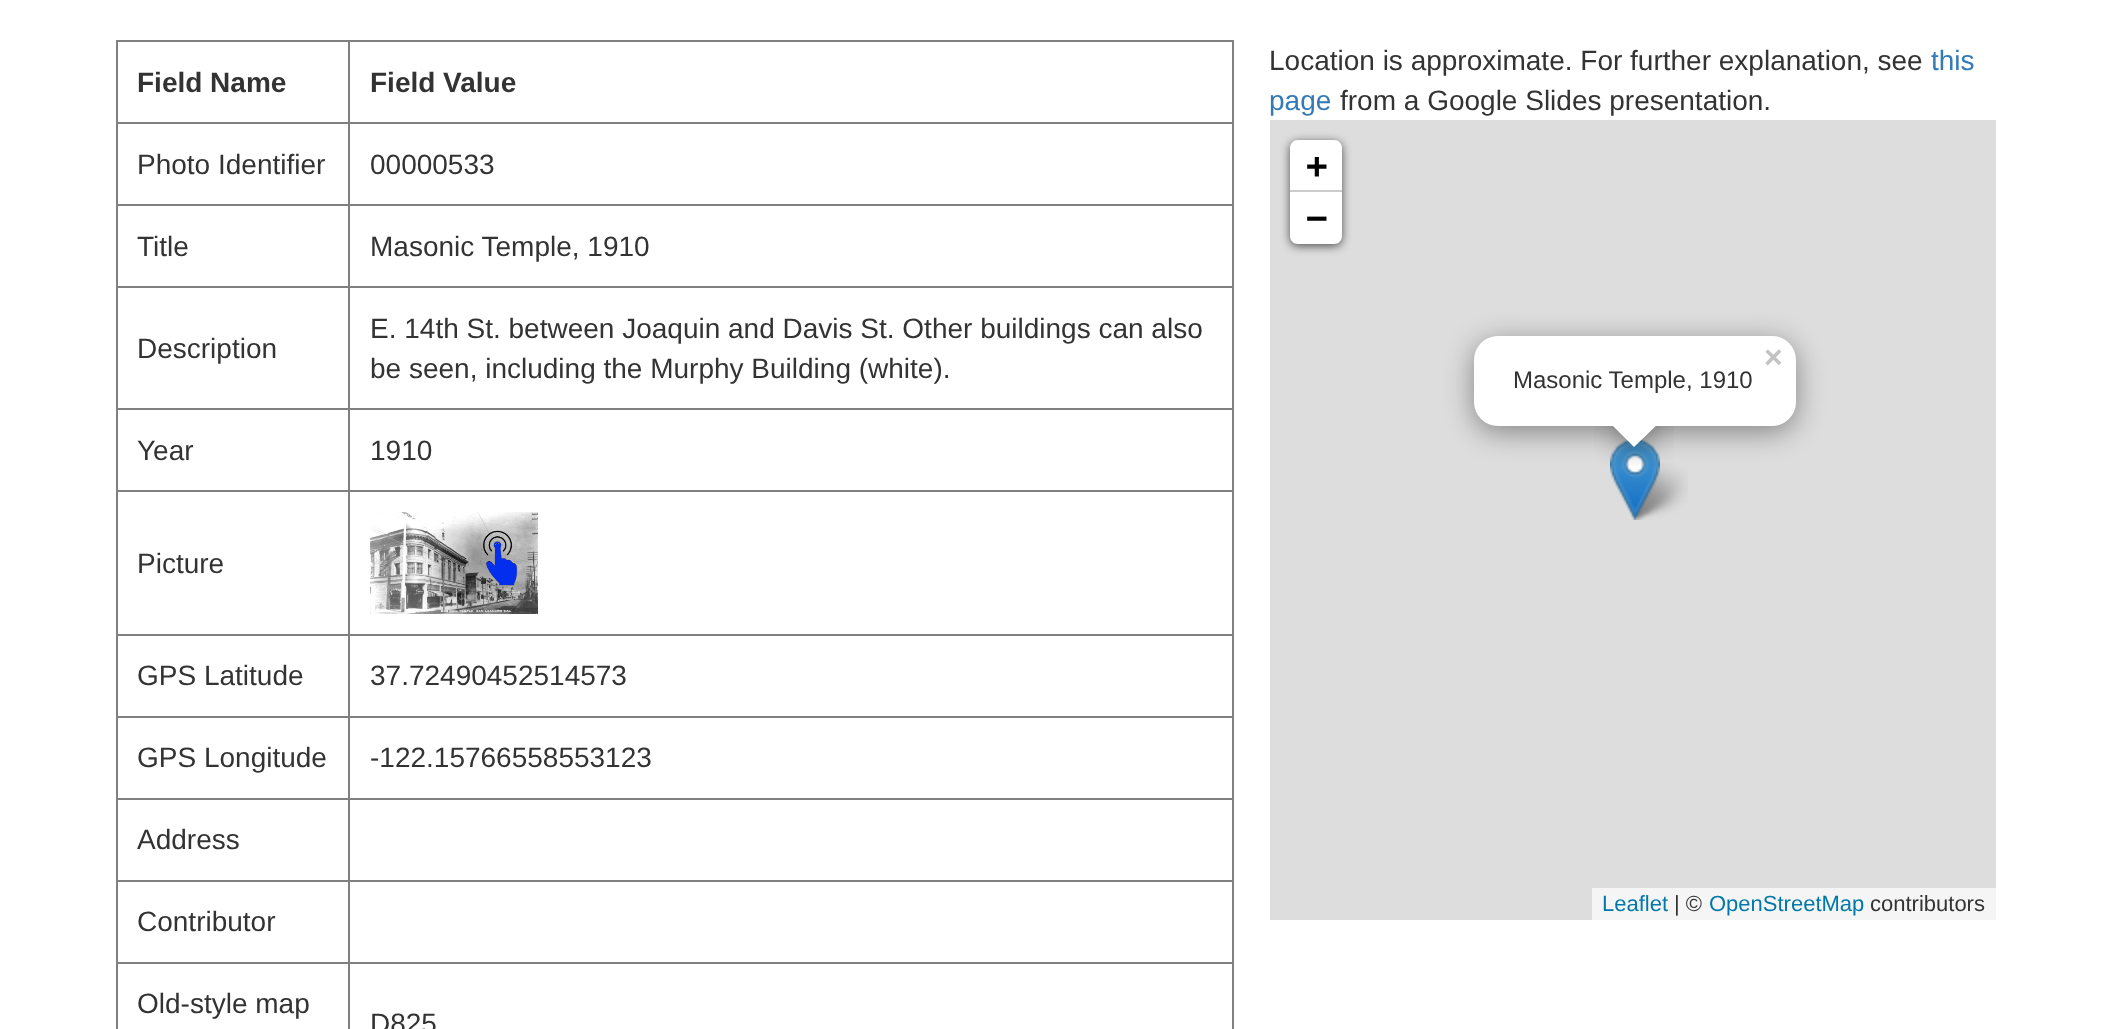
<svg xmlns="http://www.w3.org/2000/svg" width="2109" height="1029">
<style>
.a{font:bold 28px Liberation Sans;fill:#333}
.b{font:28px Liberation Sans;fill:#333}
.c{font:28px Liberation Sans;fill:#337ab7}
.d{font:bold 36px DejaVu Sans Mono;fill:#000}
.e{font:22px Liberation Sans;fill:#0078a8}
.f{font:22px Liberation Sans;fill:#333}
.g{font:bold 32px Liberation Sans;fill:#c3c3c3}
.h{font:24px Liberation Sans;fill:#333}
</style>
<defs>
<clipPath id="clip1"><path d="M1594 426h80v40H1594z"/></clipPath>
<clipPath id="clip2"><path d="M1594 426h80v40H1594z"/></clipPath>
</defs>
<rect width="100%" height="100%" fill="#fff"/>
<path fill="#808080" d="M116 40h1118v2H116z"/>
<path fill="#808080" d="M1232 40h2v989H1232z"/>
<path fill="#808080" d="M116 40h2v989H116z"/>
<path fill="#808080" d="M348 122h886v2H348z"/>
<path fill="#808080" d="M348 204h886v2H348z"/>
<path fill="#808080" d="M348 286h886v2H348z"/>
<path fill="#808080" d="M348 408h886v2H348z"/>
<path fill="#808080" d="M348 490h886v2H348z"/>
<path fill="#808080" d="M348 634h886v2H348z"/>
<path fill="#808080" d="M348 716h886v2H348z"/>
<path fill="#808080" d="M348 798h886v2H348z"/>
<path fill="#808080" d="M348 880h886v2H348z"/>
<path fill="#808080" d="M348 962h886v2H348z"/>
<path fill="#808080" d="M348 962h2v67H348z"/>
<path fill="#808080" d="M116 962h234v2H116z"/>
<path fill="#808080" d="M348 880h2v84H348z"/>
<path fill="#808080" d="M116 880h234v2H116z"/>
<path fill="#808080" d="M348 798h2v84H348z"/>
<path fill="#808080" d="M116 798h234v2H116z"/>
<path fill="#808080" d="M348 716h2v84H348z"/>
<path fill="#808080" d="M116 716h234v2H116z"/>
<path fill="#808080" d="M348 634h2v84H348z"/>
<path fill="#808080" d="M116 634h234v2H116z"/>
<path fill="#808080" d="M348 490h2v146H348z"/>
<path fill="#808080" d="M116 490h234v2H116z"/>
<path fill="#808080" d="M348 408h2v84H348z"/>
<path fill="#808080" d="M116 408h234v2H116z"/>
<path fill="#808080" d="M348 286h2v124H348z"/>
<path fill="#808080" d="M116 286h234v2H116z"/>
<path fill="#808080" d="M348 204h2v84H348z"/>
<path fill="#808080" d="M116 204h234v2H116z"/>
<path fill="#808080" d="M348 122h2v84H348z"/>
<path fill="#808080" d="M116 122h234v2H116z"/>
<path fill="#808080" d="M348 40h2v84H348z"/>
<image href="1.png" x="370" y="512" width="168" height="102"/>
<image href="2.png" x="483" y="530" width="34" height="56"/>
<path fill="#ddd" d="M1270 120h726v800H1270z"/>
<rect fill="#000000a6" filter="blur(5px)" x="1290" y="142" width="52" height="104" rx="8"/>
<path fill="#fff" d="M1298 140h36c4.5 0 8 3.5 8 8v44h-52v-44c0-4.5 3.5-8 8-8z"/>
<path fill="#ccc" d="M1290 190h52v2H1290z"/>
<path fill="#fff" d="M1290 192h52v44c0 4.5-3.5 8-8 8h-36c-4.5 0-8-3.5-8-8z"/>
<path fill="#f5f5f5" d="M1592 888h404v32H1592z"/>
<image href="4.png" x="1628" y="463" width="60" height="57"/>
<image href="3.png" x="1610" y="439" width="50" height="81"/>
<rect fill="#00000066" filter="blur(14px)" x="1474" y="342" width="322" height="90" rx="24"/>
<rect fill="#fff" x="1474" y="336" width="322" height="90" rx="24"/>
<g clip-path="url(#clip1)">
<path fill="#00000066" filter="blur(14px)" d="M1618 412h34v34H1618z"/>
</g>
<g clip-path="url(#clip2)">
<path fill="#fff" d="M1634 399l25 24l-25 24l-24-24z"/>
</g>
<text class="a" x="137" y="92">Field Name</text>
<text class="a" x="370" y="92">Field Value</text>
<text class="b" x="137" y="174">Photo Identifier</text>
<text class="b" x="370" y="174">00000533</text>
<text class="b" x="137" y="256">Title</text>
<text class="b" x="370" y="256">Masonic Temple, 1910</text>
<text class="b" x="137" y="358">Description</text>
<text class="b" x="370" y="338">E. 14th St. between Joaquin and Davis St. Other buildings can also</text>
<text class="b" x="370" y="378">be seen, including the Murphy Building (white).</text>
<text class="b" x="137" y="460">Year</text>
<text class="b" x="370" y="460">1910</text>
<text class="b" x="137" y="573">Picture</text>
<text class="b" x="137" y="685">GPS Latitude</text>
<text class="b" x="370" y="685">37.72490452514573</text>
<text class="b" x="137" y="767">GPS Longitude</text>
<text class="b" x="370" y="767">-122.15766558553123</text>
<text class="b" x="137" y="849">Address</text>
<text class="b" x="137" y="931">Contributor</text>
<text class="b" x="137" y="1013">Old-style map</text>
<text class="b" x="370" y="1033">D825</text>
<text class="b" x="1269" y="70">Location is approximate. For further explanation, see</text>
<text class="c" x="1931" y="70">this</text>
<text class="c" x="1269" y="110">page</text>
<text class="b" x="1340" y="110">from a Google Slides presentation.</text>
<text class="d" x="1306" y="178">+</text>
<text class="d" x="1306" y="230">−</text>
<text class="e" x="1602" y="911">Leaflet</text>
<text class="f" x="1674" y="911">| ©</text>
<text class="e" x="1709" y="911">OpenStreetMap</text>
<text class="f" x="1870" y="911">contributors</text>
<text class="g" x="1764" y="368">×</text>
<text class="h" x="1513" y="388">Masonic Temple, 1910</text>
</svg>
